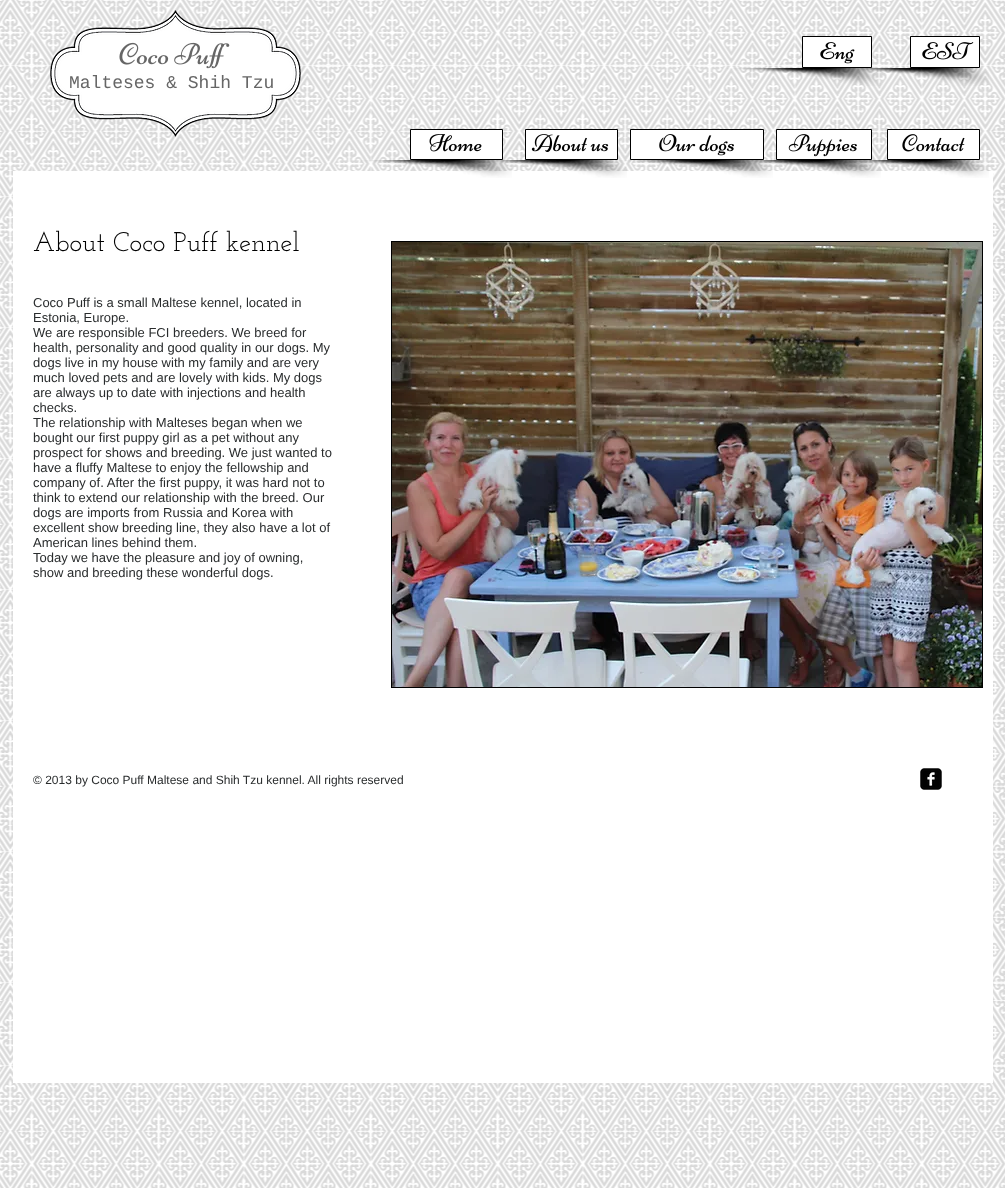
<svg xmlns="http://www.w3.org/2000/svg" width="1005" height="1188">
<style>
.a{font:18px Liberation Mono;fill:#666}
.b{font:27px Josefin Slab;fill:#000}
.c{font:13px Liberation Sans;fill:#292c2d}
.d{font:12px Liberation Sans;fill:#292c2d}
</style>
<rect width="100%" height="100%" fill="#fff"/>
<image href="1.png" x="0" y="0" width="1005" height="1188"/>
<image href="2.png" x="50" y="10" width="251" height="127"/>
<path fill="#fff" stroke="#000" d="M802.5 36.5h69v31H802.5z"/>
<image href="3.png" x="820" y="42" width="35" height="22"/>
<image href="4.png" x="727" y="68" width="154" height="18"/>
<path fill="#fff" stroke="#000" d="M910.5 36.5h69v31H910.5z"/>
<image href="5.png" x="922" y="42" width="52" height="18"/>
<image href="6.png" x="847" y="68" width="142" height="18"/>
<image href="7.png" x="119" y="42" width="111" height="27"/>
<path fill="#fff" d="M13 171h980v912H13z"/>
<path fill="#fff" stroke="#000" d="M410.5 129.5h92v30H410.5z"/>
<image href="8.png" x="429" y="134" width="53" height="18"/>
<image href="9.png" x="358" y="160" width="154" height="18"/>
<path fill="#fff" stroke="#000" d="M525.5 129.5h92v30H525.5z"/>
<image href="10.png" x="531" y="134" width="78" height="18"/>
<image href="11.png" x="483" y="160" width="144" height="18"/>
<path fill="#fff" stroke="#000" d="M630.5 129.5h133v30H630.5z"/>
<image href="12.png" x="659" y="134" width="75" height="22"/>
<image href="13.png" x="619" y="160" width="154" height="18"/>
<path fill="#fff" stroke="#000" d="M776.5 129.5h95v30H776.5z"/>
<image href="14.png" x="788" y="134" width="69" height="23"/>
<image href="15.png" x="740" y="160" width="141" height="18"/>
<path fill="#fff" stroke="#000" d="M887.5 129.5h92v30H887.5z"/>
<image href="16.png" x="902" y="134" width="63" height="18"/>
<image href="17.png" x="847" y="160" width="142" height="18"/>
<path fill="#000" d="M391 241h592v447H391z"/>
<image href="18.png" x="392" y="242" width="590" height="445"/>
<image href="19.png" x="920" y="768" width="22" height="22"/>
<text class="a" x="69" y="88">Malteses &amp; Shih Tzu</text>
<text class="b" x="33" y="251">About Coco Puff kennel</text>
<text class="c" x="33" y="307">Coco Puff is a small Maltese kennel, located in</text>
<text class="c" x="33" y="322">Estonia, Europe.</text>
<text class="c" x="33" y="337">We are responsible FCI breeders. We breed for</text>
<text class="c" x="33" y="352">health, personality and good quality in our dogs. My</text>
<text class="c" x="33" y="367">dogs live in my house with my family and are very</text>
<text class="c" x="33" y="382">much loved pets and are lovely with kids. My dogs</text>
<text class="c" x="33" y="397">are always up to date with injections and health</text>
<text class="c" x="33" y="412">checks.</text>
<text class="c" x="33" y="427">The relationship with Malteses began when we</text>
<text class="c" x="33" y="442">bought our first puppy girl as a pet without any</text>
<text class="c" x="33" y="457">prospect for shows and breeding. We just wanted to</text>
<text class="c" x="33" y="472">have a fluffy Maltese to enjoy the fellowship and</text>
<text class="c" x="33" y="487">company of. After the first puppy, it was hard not to</text>
<text class="c" x="33" y="502">think to extend our relationship with the breed. Our</text>
<text class="c" x="33" y="517">dogs are imports from Russia and Korea with</text>
<text class="c" x="33" y="532">excellent show breeding line, they also have a lot of</text>
<text class="c" x="33" y="547">American lines behind them.</text>
<text class="c" x="33" y="562">Today we have the pleasure and joy of owning,</text>
<text class="c" x="33" y="577">show and breeding these wonderful dogs.</text>
<text class="d" x="33" y="784">© 2013 by Coco Puff Maltese and Shih Tzu kennel. All rights reserved</text>
</svg>
